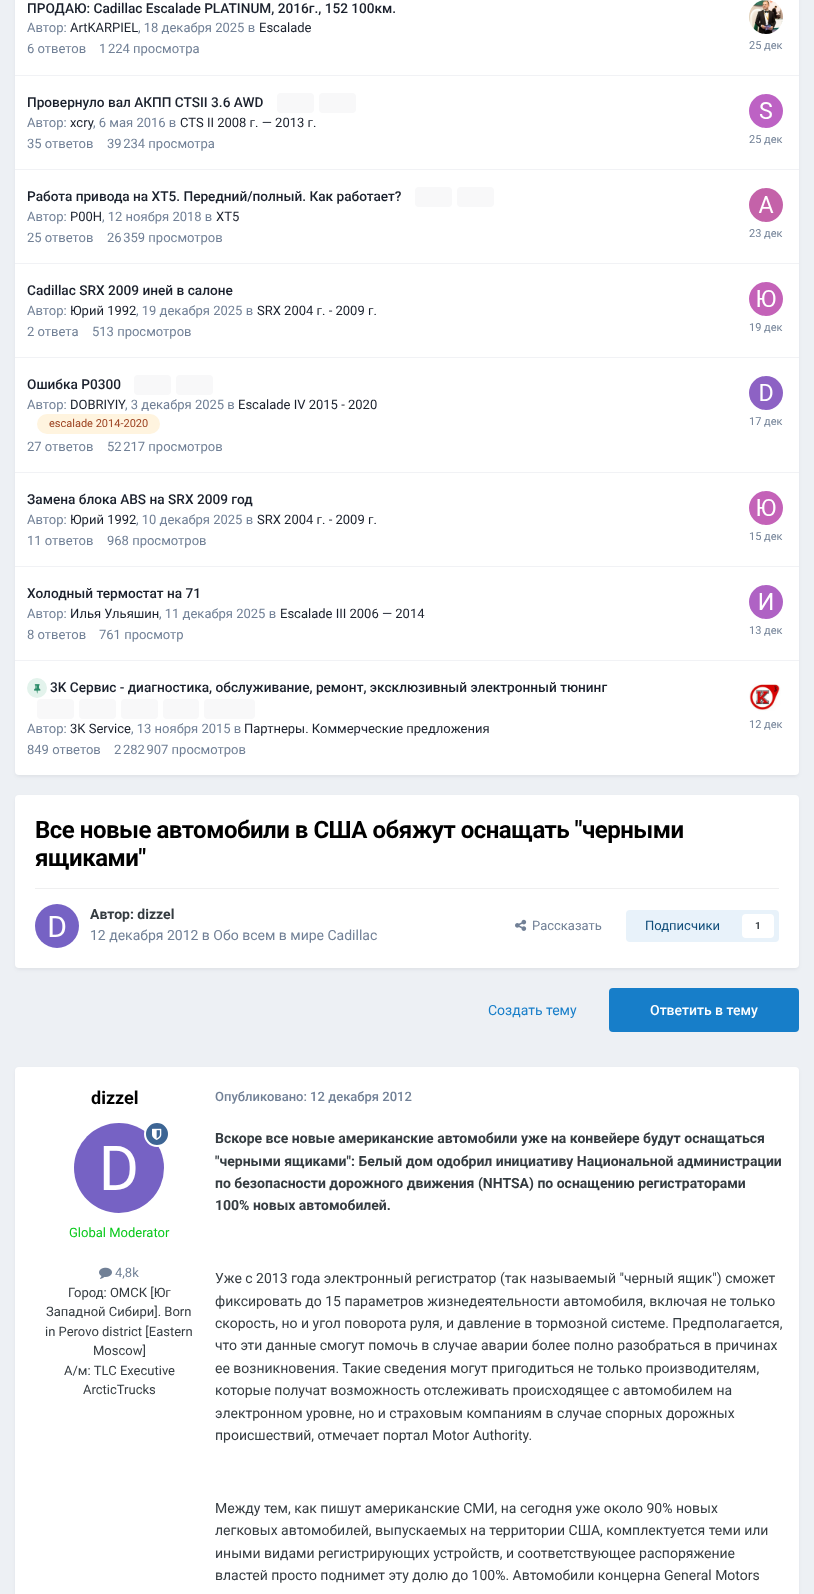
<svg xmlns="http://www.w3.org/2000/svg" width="814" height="1594">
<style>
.a{font:500 13.65px Roboto;fill:#1a202c}
.b{font:13px Roboto;fill:#718096}
.c{font:13px Roboto;fill:#1a202c}
.d{font:11px Roboto;fill:#718096}
.e{font:11px Roboto;fill:#9c4221}
.f{font:bold 24px Roboto;letter-spacing:-0.48px;fill:#000}
.g{font:bold 14px Roboto;fill:#353c41}
.h{font:14px Roboto;fill:#718096}
.i{font:13px Roboto;fill:#0e4c79}
.j{font:bold 10px Roboto;fill:#353c41}
.k{font:14px Roboto;fill:#177ec9}
.l{font:500 14px Roboto;fill:#fff}
.m{font:bold 18px Roboto;fill:#000}
.n{font:13px Roboto;fill:#08c91b}
.o{font:13px Roboto;fill:#353c41}
.p{font:500 13px Roboto;fill:#718096}
.q{font:14px Roboto;fill:#353c41}
</style>
<rect width="100%" height="100%" fill="#edf0f4"/>
<rect fill="#2d37481a" filter="blur(2px)" x="16" y="-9" width="782" height="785" rx="3"/>
<rect fill="#fff" x="15" y="-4" width="784" height="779" rx="4"/>
<path fill="#f1f2f5" d="M15 75h784v1H15z"/>
<image href="1.png" x="749" y="0" width="34" height="34"/>
<path fill="#f1f2f5" d="M15 169h784v1H15z"/>
<rect fill="#f8f8f9" x="277" y="93" width="37" height="20" rx="4"/>
<rect fill="#f8f8f9" x="319" y="93" width="37" height="20" rx="4"/>
<image href="2.png" x="749" y="94" width="34" height="34"/>
<path fill="#f1f2f5" d="M15 263h784v1H15z"/>
<rect fill="#f8f8f9" x="415" y="187" width="37" height="20" rx="4"/>
<rect fill="#f8f8f9" x="457" y="187" width="37" height="20" rx="4"/>
<image href="3.png" x="749" y="188" width="34" height="34"/>
<path fill="#f1f2f5" d="M15 357h784v1H15z"/>
<image href="4.png" x="749" y="282" width="34" height="34"/>
<path fill="#f1f2f5" d="M15 472h784v1H15z"/>
<rect fill="#f8f8f9" x="134" y="375" width="37" height="20" rx="4"/>
<rect fill="#f8f8f9" x="176" y="375" width="37" height="20" rx="4"/>
<rect fill="#fff4df" x="37" y="414" width="123" height="20" rx="10"/>
<image href="5.png" x="749" y="376" width="34" height="34"/>
<path fill="#f1f2f5" d="M15 566h784v1H15z"/>
<image href="4.png" x="749" y="491" width="34" height="34"/>
<path fill="#f1f2f5" d="M15 660h784v1H15z"/>
<image href="6.png" x="749" y="585" width="34" height="34"/>
<circle fill="#e3f3ec" cx="37" cy="688" r="10"/>
<image href="7.png" x="34" y="684" width="7" height="10"/>
<rect fill="#f8f8f9" x="37" y="699" width="37" height="20" rx="4"/>
<rect fill="#f8f8f9" x="79" y="699" width="37" height="20" rx="4"/>
<rect fill="#f8f8f9" x="121" y="699" width="37" height="20" rx="4"/>
<rect fill="#f8f8f9" x="163" y="699" width="36" height="20" rx="4"/>
<rect fill="#f8f8f9" x="204" y="699" width="51" height="20" rx="4"/>
<image href="8.png" x="749" y="684" width="32" height="27"/>
<rect fill="#2d37481a" filter="blur(2px)" x="16" y="798" width="782" height="171" rx="3"/>
<rect fill="#fff" x="15" y="795" width="784" height="173" rx="4"/>
<path fill="#efeff0" d="M35 888h744v1H35z"/>
<image href="9.png" x="35" y="904" width="44" height="44"/>
<image href="10.png" x="515" y="919" width="12" height="12"/>
<rect fill="#e8f2fa" x="626" y="910" width="153" height="32" rx="4"/>
<rect fill="#fff" x="742" y="914" width="32" height="24" rx="4"/>
<rect fill="#177ec9" x="609" y="988" width="190" height="44" rx="4"/>
<rect fill="#2d37481a" filter="blur(2px)" x="16" y="1070" width="782" height="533" rx="3"/>
<rect fill="#fff" x="15" y="1067" width="784" height="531" rx="4"/>
<image href="12.png" x="74" y="1123" width="90" height="90"/>
<circle fill="#3d6594" stroke="#fff" stroke-width="2" cx="157" cy="1134" r="12"/>
<image href="11.png" x="152" y="1128" width="10" height="12"/>
<image href="13.png" x="99" y="1267" width="13" height="12"/>
<text class="a" x="27" y="13">ПРОДАЮ: Cadillac Escalade PLATINUM, 2016г., 152 100км.</text>
<text class="b" x="27" y="32">Автор:</text>
<text class="c" x="70" y="32">ArtKARPIEL</text>
<text class="b" x="138" y="32">, 18 декабря 2025 в</text>
<text class="c" x="259" y="32">Escalade</text>
<text class="b" x="27" y="53">6 ответов</text>
<text class="b" x="99" y="53">1 224 просмотра</text>
<text class="d" x="749" y="49">25 дек</text>
<text class="a" x="27" y="107">Провернуло вал АКПП CTSII 3.6 AWD</text>
<text class="b" x="27" y="127">Автор:</text>
<text class="c" x="70" y="127">xcry</text>
<text class="b" x="93" y="127">, 6 мая 2016 в</text>
<text class="c" x="180" y="127">CTS II 2008 г. — 2013 г.</text>
<text class="b" x="27" y="148">35 ответов</text>
<text class="b" x="107" y="148">39 234 просмотра</text>
<text class="d" x="749" y="143">25 дек</text>
<text class="a" x="27" y="201">Работа привода на ХТ5. Передний/полный. Как работает?</text>
<text class="b" x="27" y="221">Автор:</text>
<text class="c" x="70" y="221">P00H</text>
<text class="b" x="102" y="221">, 12 ноября 2018 в</text>
<text class="c" x="216" y="221">XT5</text>
<text class="b" x="27" y="242">25 ответов</text>
<text class="b" x="107" y="242">26 359 просмотров</text>
<text class="d" x="749" y="237">23 дек</text>
<text class="a" x="27" y="295">Cadillac SRX 2009 иней в салоне</text>
<text class="b" x="27" y="315">Автор:</text>
<text class="c" x="70" y="315">Юрий 1992</text>
<text class="b" x="136" y="315">, 19 декабря 2025 в</text>
<text class="c" x="257" y="315">SRX 2004 г. - 2009 г.</text>
<text class="b" x="27" y="336">2 ответа</text>
<text class="b" x="92" y="336">513 просмотров</text>
<text class="d" x="749" y="331">19 дек</text>
<text class="a" x="27" y="389">Ошибка Р0300</text>
<text class="b" x="27" y="409">Автор:</text>
<text class="c" x="70" y="409">DOBRIYIY</text>
<text class="b" x="125" y="409">, 3 декабря 2025 в</text>
<text class="c" x="238" y="409">Escalade IV 2015 - 2020</text>
<text class="e" x="49" y="427">escalade 2014-2020</text>
<text class="d" x="749" y="425">17 дек</text>
<text class="b" x="27" y="451">27 ответов</text>
<text class="b" x="107" y="451">52 217 просмотров</text>
<text class="a" x="27" y="504">Замена блока ABS на SRX 2009 год</text>
<text class="b" x="27" y="524">Автор:</text>
<text class="c" x="70" y="524">Юрий 1992</text>
<text class="b" x="136" y="524">, 10 декабря 2025 в</text>
<text class="c" x="257" y="524">SRX 2004 г. - 2009 г.</text>
<text class="b" x="27" y="545">11 ответов</text>
<text class="b" x="107" y="545">968 просмотров</text>
<text class="d" x="749" y="540">15 дек</text>
<text class="a" x="27" y="598">Холодный термостат на 71</text>
<text class="b" x="27" y="618">Автор:</text>
<text class="c" x="70" y="618">Илья Ульяшин</text>
<text class="b" x="159" y="618">, 11 декабря 2025 в</text>
<text class="c" x="280" y="618">Escalade III 2006 — 2014</text>
<text class="b" x="27" y="639">8 ответов</text>
<text class="b" x="99" y="639">761 просмотр</text>
<text class="d" x="749" y="634">13 дек</text>
<text class="a" x="50" y="692">3K Cервис - диагностика, обслуживание, ремонт, эксклюзивный электронный тюнинг</text>
<text class="b" x="27" y="733">Автор:</text>
<text class="c" x="70" y="733">3K Service</text>
<text class="b" x="131" y="733">, 13 ноября 2015 в</text>
<text class="c" x="244" y="733">Партнеры. Коммерческие предложения</text>
<text class="d" x="749" y="728">12 дек</text>
<text class="b" x="27" y="754">849 ответов</text>
<text class="b" x="114" y="754">2 282 907 просмотров</text>
<text class="f" x="35" y="838">Все новые автомобили в США обяжут оснащать "черными</text>
<text class="f" x="35" y="866">ящиками"</text>
<text class="g" x="90" y="919">Автор: dizzel</text>
<text class="h" x="90" y="940">12 декабря 2012 в Обо всем в мире Cadillac</text>
<text class="b" x="532" y="930">Рассказать</text>
<text class="i" x="645" y="930">Подписчики</text>
<text class="j" x="755" y="929">1</text>
<text class="k" x="488" y="1015">Создать тему</text>
<text class="l" x="650" y="1015">Ответить в тему</text>
<text class="m" x="91" y="1104">dizzel</text>
<text class="n" x="69" y="1237">Global Moderator</text>
<text class="b" x="115" y="1277">4,8k</text>
<text class="o" x="68" y="1297">Город: ОМСК [Юг</text>
<text class="o" x="46" y="1316">Западной Сибири]. Born</text>
<text class="o" x="45" y="1336">in Perovo district [Eastern</text>
<text class="o" x="93" y="1355">Moscow]</text>
<text class="o" x="64" y="1375">А/м: TLC Executive</text>
<text class="o" x="83" y="1394">ArcticTrucks</text>
<text class="p" x="215" y="1101">Опубликовано: 12 декабря 2012</text>
<text class="g" x="215" y="1143">Вскоре все новые американские автомобили уже на конвейере будут оснащаться</text>
<text class="g" x="215" y="1166">"черными ящиками": Белый дом одобрил инициативу Национальной администрации</text>
<text class="g" x="215" y="1188">по безопасности дорожного движения (NHTSA) по оснащению регистраторами</text>
<text class="g" x="215" y="1210">100% новых автомобилей.</text>
<text class="q" x="215" y="1283">Уже с 2013 года электронный регистратор (так называемый "черный ящик") сможет</text>
<text class="q" x="215" y="1306">фиксировать до 15 параметров жизнедеятельности автомобиля, включая не только</text>
<text class="q" x="215" y="1328">скорость, но и угол поворота руля, и давление в тормозной системе. Предполагается,</text>
<text class="q" x="215" y="1350">что эти данные смогут помочь в случае аварии более полно разобраться в причинах</text>
<text class="q" x="215" y="1373">ее возникновения. Такие сведения могут пригодиться не только производителям,</text>
<text class="q" x="215" y="1395">которые получат возможность отслеживать происходящее с автомобилем на</text>
<text class="q" x="215" y="1418">электронном уровне, но и страховым компаниям в случае спорных дорожных</text>
<text class="q" x="215" y="1440">происшествий, отмечает портал Motor Authority.</text>
<text class="q" x="215" y="1513">Между тем, как пишут американские СМИ, на сегодня уже около 90% новых</text>
<text class="q" x="215" y="1535">легковых автомобилей, выпускаемых на территории США, комплектуется теми или</text>
<text class="q" x="215" y="1558">иными видами регистрирующих устройств, и соответствующее распоряжение</text>
<text class="q" x="215" y="1580">властей просто поднимет эту долю до 100%. Автомобили концерна General Motors</text>
</svg>
